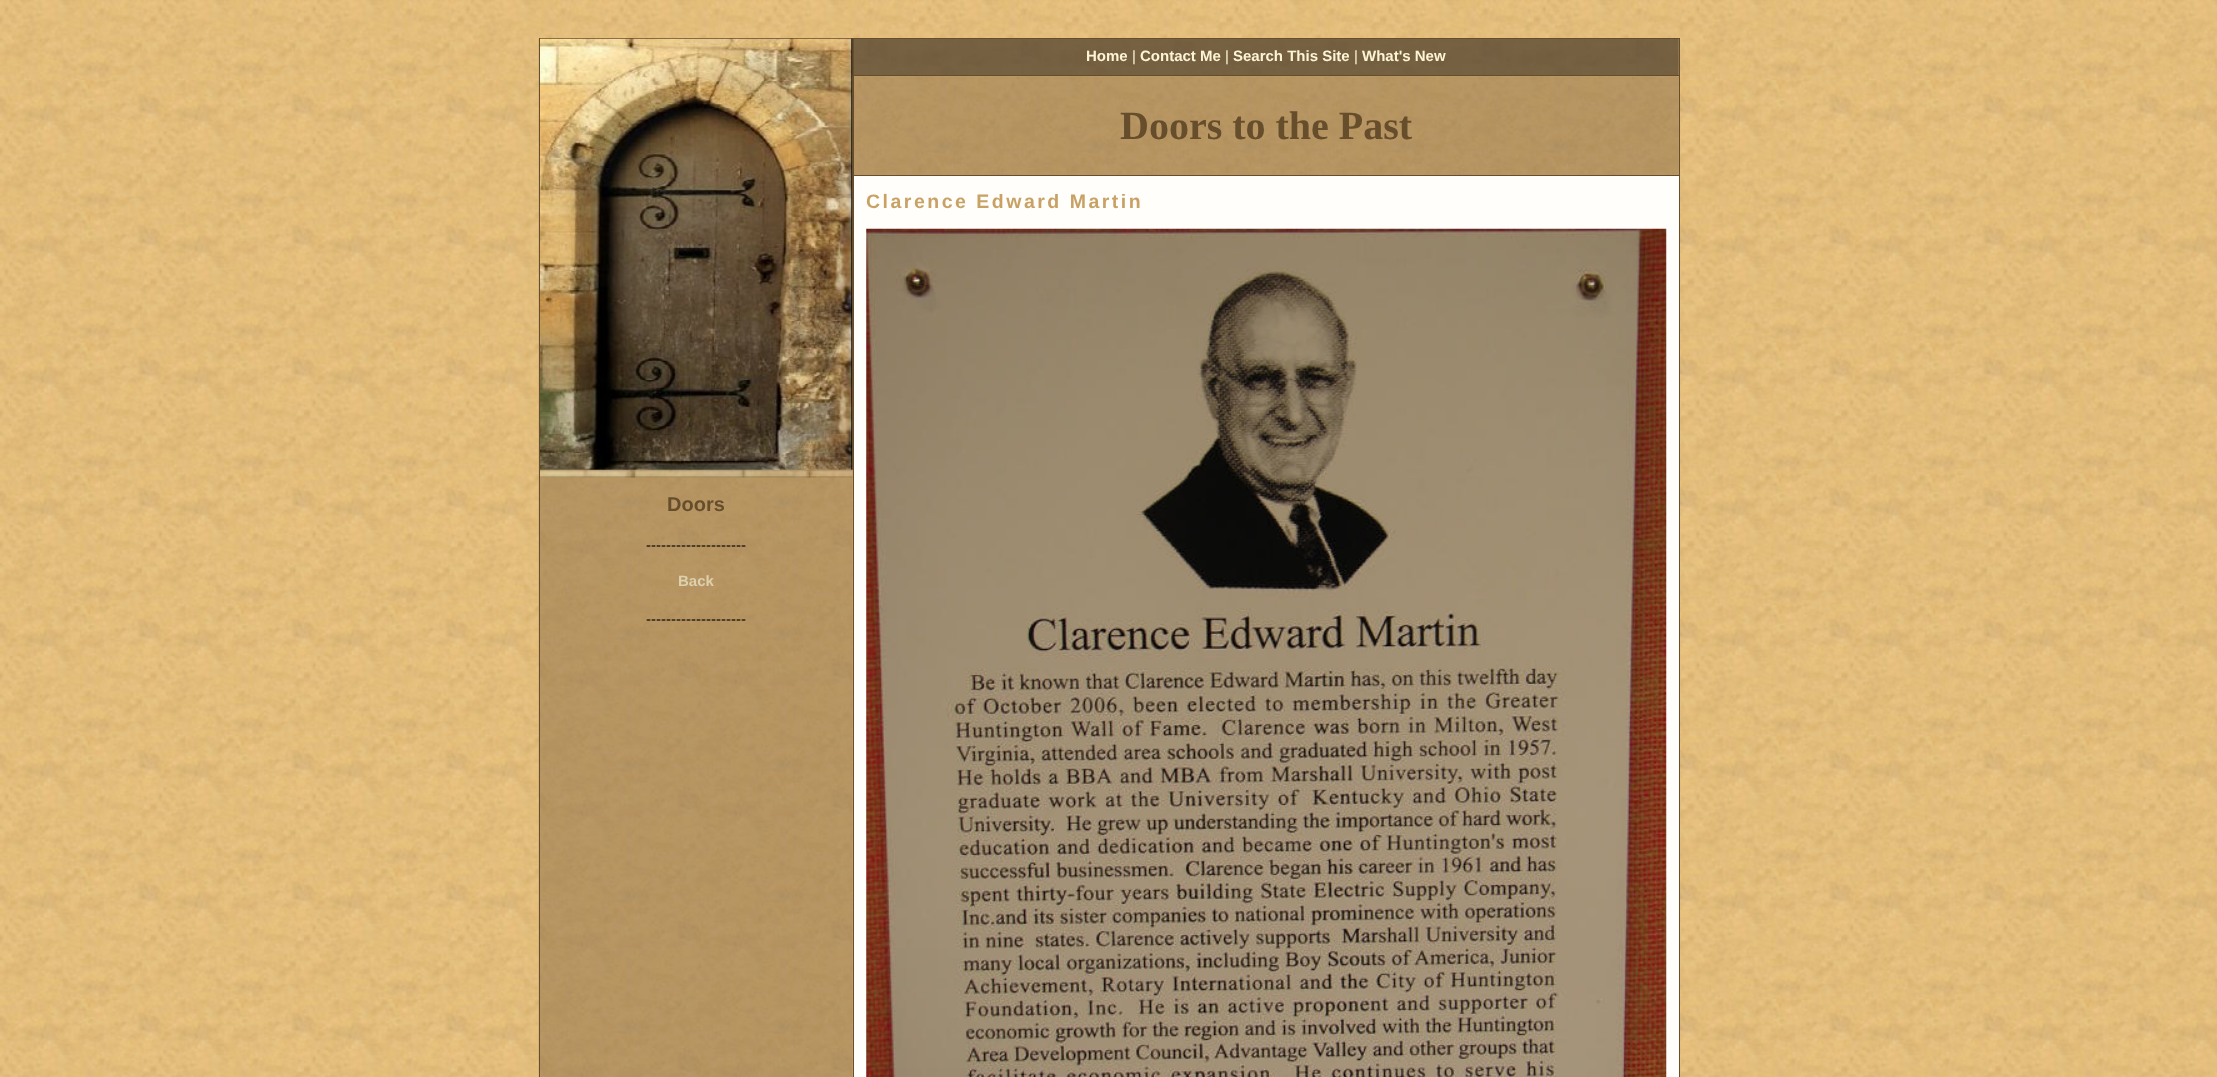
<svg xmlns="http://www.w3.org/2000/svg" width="2217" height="1077">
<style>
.a{font:bold 15px Liberation Sans;fill:#fef5d6}
.b{font:15px Liberation Sans;fill:#fef5d6}
.c{font:bold 20px Liberation Sans;fill:#664d2c}
.d{font:15px Liberation Sans;fill:#000}
.e{font:bold 15px Liberation Sans;fill:#ddd0ae}
.f{font:bold 40px Liberation Serif;fill:#664d2c}
.g{font:bold 19.5px Liberation Sans;letter-spacing:2.5px;fill:#c8a265}
</style>
<rect width="100%" height="100%" fill="#fff"/>
<image href="1.png" x="0" y="0" width="2217" height="1077"/>
<path fill="#c8a265" d="M852 39h1v1038H852z"/>
<image href="3.png" x="538" y="38" width="315" height="1039"/>
<image href="2.png" x="852" y="39" width="827" height="38"/>
<path fill="#664d2c" d="M853 38h827v1H853z"/>
<path fill="#664d2c" d="M853 75h827v1H853z"/>
<path fill="#c8a265" d="M854 76h825v99H854z"/>
<image href="5.png" x="852" y="76" width="827" height="101"/>
<path fill="#664d2c" d="M853 175h827v1H853z"/>
<path fill="#664d2c" d="M1679 175h1v902H1679z"/>
<path fill="#664d2c" d="M1679 75h1v101H1679z"/>
<path fill="#664d2c" d="M1679 38h1v38H1679z"/>
<path fill="#664d2c" d="M853 175h1v902H853z"/>
<path fill="#664d2c" d="M853 75h1v101H853z"/>
<path fill="#664d2c" d="M853 38h1v38H853z"/>
<path fill="#664d2c" d="M539 38h315v1H539z"/>
<path fill="#664d2c" d="M539 38h1v1039H539z"/>
<image href="4.png" x="540" y="38" width="313" height="440"/>
<path fill="#fffefb" d="M854 176h825v901H854z"/>
<image href="6.png" x="866" y="228" width="801" height="849"/>
<text class="a" x="1086" y="61">Home</text>
<text class="b" x="1132" y="61">|</text>
<text class="a" x="1140" y="61">Contact Me</text>
<text class="b" x="1225" y="61">|</text>
<text class="a" x="1233" y="61">Search This Site</text>
<text class="b" x="1354" y="61">|</text>
<text class="a" x="1362" y="61">What's New</text>
<text class="c" x="667" y="511">Doors</text>
<text class="d" x="646" y="550">--------------------</text>
<text class="e" x="678" y="586">Back</text>
<text class="d" x="646" y="624">--------------------</text>
<text class="f" x="1120" y="139">Doors to the Past</text>
<text class="g" x="866" y="208">Clarence Edward Martin</text>
</svg>
